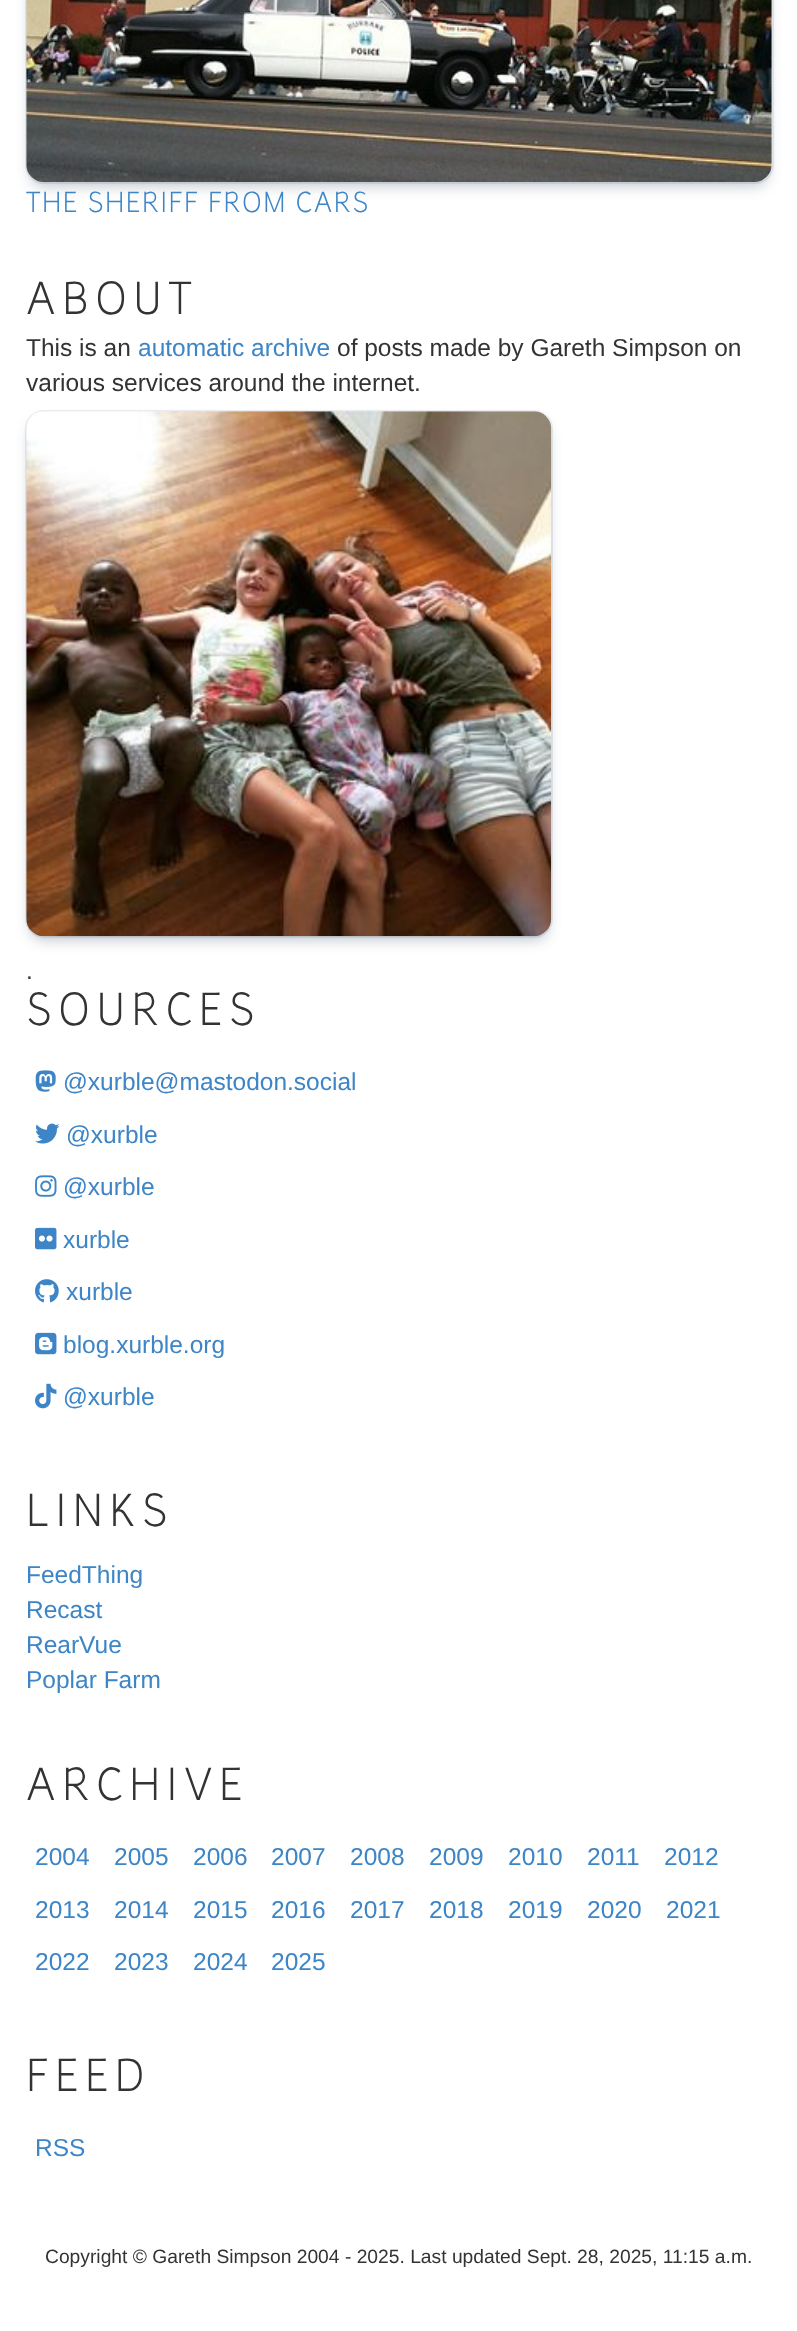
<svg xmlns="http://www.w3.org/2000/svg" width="797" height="2331">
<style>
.a{font:300 26.25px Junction;letter-spacing:1.75px;fill:#3d85c6}
.b{font:300 42px Junction;letter-spacing:7px;fill:#333}
.c{font:24.5px Liberation Sans;fill:#333}
.d{font:24.5px Liberation Sans;fill:#3d85c6}
.e{font:19.25px Liberation Sans;fill:#333}
</style>
<rect width="100%" height="100%" fill="#fff"/>
<rect fill="none" stroke="#ebedf0" stroke-width="2" x="26" y="-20" width="747" height="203" rx="18"/>
<rect fill="#091e4240" filter="blur(7px)" x="30" y="-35" width="738" height="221" rx="14"/>
<image href="1.png" x="26" y="0" width="746" height="182"/>
<rect fill="none" stroke="#ebedf0" stroke-width="2" x="26" y="411" width="526" height="526" rx="18"/>
<rect fill="#091e4240" filter="blur(7px)" x="30" y="422" width="518" height="518" rx="14"/>
<image href="2.png" x="26" y="411" width="526" height="526"/>
<image href="3.png" x="35" y="1070" width="21" height="22"/>
<image href="4.png" x="35" y="1123" width="25" height="21"/>
<image href="5.png" x="35" y="1175" width="22" height="22"/>
<image href="6.png" x="35" y="1227" width="22" height="23"/>
<image href="7.png" x="35" y="1279" width="24" height="24"/>
<image href="8.png" x="35" y="1332" width="22" height="23"/>
<image href="9.png" x="35" y="1383" width="22" height="26"/>
<text class="a" x="26" y="212">THE SHERIFF FROM CARS</text>
<text class="b" x="26" y="314">ABOUT</text>
<text class="c" x="26" y="356">This is an</text>
<text class="d" x="138" y="356">automatic archive</text>
<text class="c" x="337" y="356">of posts made by Gareth Simpson on</text>
<text class="c" x="26" y="391">various services around the internet.</text>
<text class="c" x="26" y="979">.</text>
<text class="b" x="26" y="1025">SOURCES</text>
<text class="d" x="63" y="1090">@xurble@mastodon.social</text>
<text class="d" x="66" y="1143">@xurble</text>
<text class="d" x="63" y="1195">@xurble</text>
<text class="d" x="63" y="1248">xurble</text>
<text class="d" x="66" y="1300">xurble</text>
<text class="d" x="63" y="1353">blog.xurble.org</text>
<text class="d" x="63" y="1405">@xurble</text>
<text class="b" x="26" y="1526">LINKS</text>
<text class="d" x="26" y="1583">FeedThing</text>
<text class="d" x="26" y="1618">Recast</text>
<text class="d" x="26" y="1653">RearVue</text>
<text class="d" x="26" y="1688">Poplar Farm</text>
<text class="b" x="26" y="1800">ARCHIVE</text>
<text class="d" x="35" y="1865">2004</text>
<text class="d" x="114" y="1865">2005</text>
<text class="d" x="193" y="1865">2006</text>
<text class="d" x="271" y="1865">2007</text>
<text class="d" x="350" y="1865">2008</text>
<text class="d" x="429" y="1865">2009</text>
<text class="d" x="508" y="1865">2010</text>
<text class="d" x="587" y="1865">2011</text>
<text class="d" x="664" y="1865">2012</text>
<text class="d" x="35" y="1918">2013</text>
<text class="d" x="114" y="1918">2014</text>
<text class="d" x="193" y="1918">2015</text>
<text class="d" x="271" y="1918">2016</text>
<text class="d" x="350" y="1918">2017</text>
<text class="d" x="429" y="1918">2018</text>
<text class="d" x="508" y="1918">2019</text>
<text class="d" x="587" y="1918">2020</text>
<text class="d" x="666" y="1918">2021</text>
<text class="d" x="35" y="1970">2022</text>
<text class="d" x="114" y="1970">2023</text>
<text class="d" x="193" y="1970">2024</text>
<text class="d" x="271" y="1970">2025</text>
<text class="b" x="26" y="2091">FEED</text>
<text class="d" x="35" y="2156">RSS</text>
<text class="e" x="45" y="2263">Copyright © Gareth Simpson 2004 - 2025. Last updated Sept. 28, 2025, 11:15 a.m.</text>
</svg>
